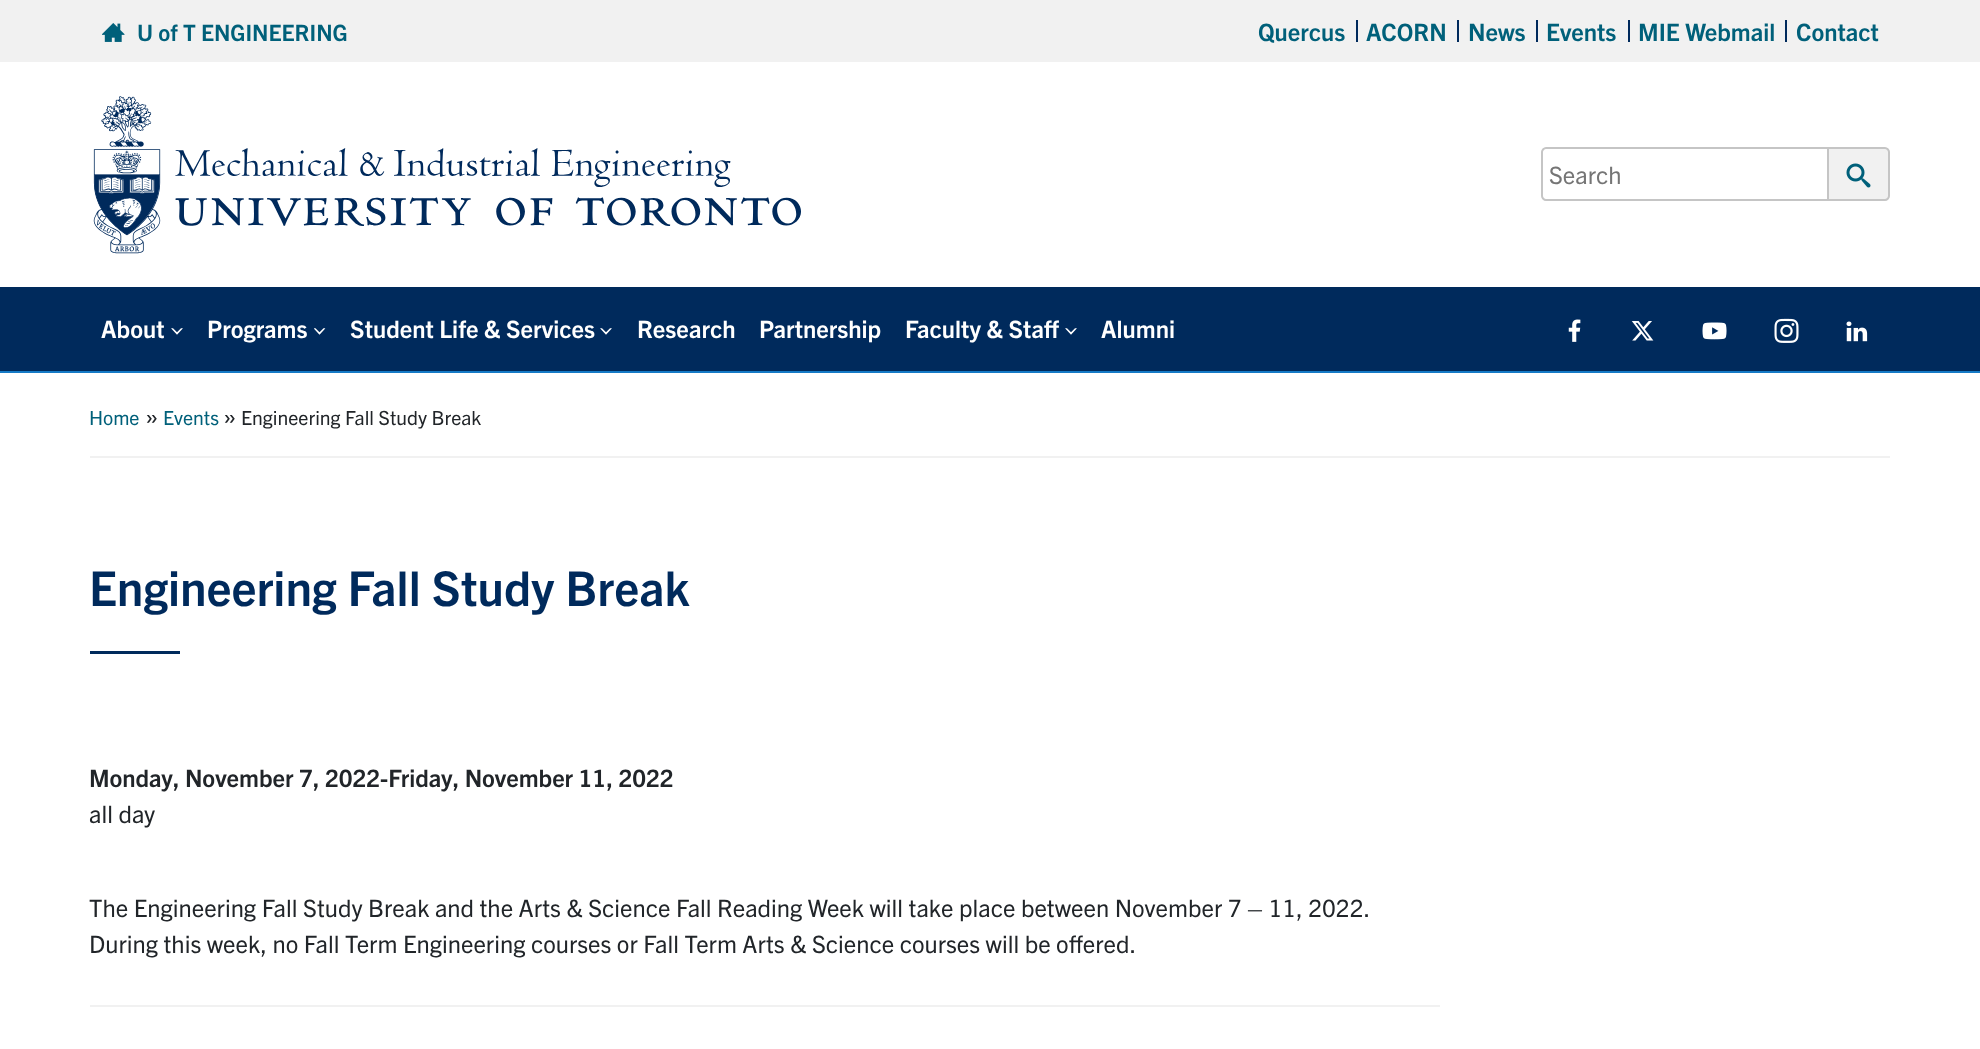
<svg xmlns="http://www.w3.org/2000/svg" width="1980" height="1049">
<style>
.a{font:bold 22.5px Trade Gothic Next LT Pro;fill:#00607a}
.b{font:bold 24px Trade Gothic Next LT Pro;fill:#00607a}
.c{font:24px Trade Gothic Next LT Pro;fill:#757575}
.d{font:bold 24px Trade Gothic Next LT Pro;fill:#fff}
.e{font:19.5px Trade Gothic Next LT Pro;fill:#00607a}
.f{font:24px Trade Gothic Next LT Pro;fill:#212529}
.g{font:19.5px Trade Gothic Next LT Pro;fill:#212529}
.h{font:bold 48px Trade Gothic Next LT Pro;fill:#002a5c}
.i{font:bold 24px Trade Gothic Next LT Pro;fill:#212529}
</style>
<rect width="100%" height="100%" fill="#fff"/>
<path fill="#f1f1f1" d="M0 0h1980v62H0z"/>
<image href="1.png" x="102" y="23" width="23" height="19"/>
<path fill="#002a5c" d="M1356 20h2v22H1356z"/>
<path fill="#002a5c" d="M1457 20h2v22H1457z"/>
<path fill="#002a5c" d="M1536 20h2v22H1536z"/>
<path fill="#002a5c" d="M1628 20h2v22H1628z"/>
<path fill="#002a5c" d="M1785 20h2v22H1785z"/>
<image href="2.png" x="93" y="96" width="708" height="158"/>
<path fill="none" stroke="#c5c5c5" stroke-width="2" d="M1546 148h285v52h-285c-2 0-4-2-4-4v-44c0-2 2-4 4-4z"/>
<path fill="#f1f1f1" stroke="#c5c5c5" stroke-width="2" d="M1828 148h57c2 0 4 2 4 4v44c0 2-2 4-4 4h-57z"/>
<image href="3.png" x="1846" y="163" width="25" height="25"/>
<path fill="#002a5c" d="M0 287h1980v84H0z"/>
<path fill="#167ac6" d="M0 371h1980v2H0z"/>
<image href="4.png" x="171" y="328" width="12" height="7"/>
<image href="5.png" x="314" y="328" width="12" height="7"/>
<image href="4.png" x="600" y="328" width="12" height="7"/>
<image href="4.png" x="1065" y="328" width="12" height="7"/>
<image href="6.png" x="1568" y="319" width="13" height="23"/>
<image href="7.png" x="1631" y="321" width="23" height="20"/>
<image href="8.png" x="1702" y="322" width="25" height="18"/>
<image href="9.png" x="1774" y="318" width="25" height="25"/>
<image href="10.png" x="1846" y="321" width="22" height="21"/>
<path fill="#f1f1f1" d="M90 456h1800v2H90z"/>
<path fill="#002a5c" d="M90 651h90v3H90z"/>
<path fill="#f1f1f1" d="M90 1005h1350v2H90z"/>
<text class="a" x="137" y="41">U of T ENGINEERING</text>
<text class="b" x="1258" y="41">Quercus</text>
<text class="b" x="1366" y="41">ACORN</text>
<text class="b" x="1468" y="41">News</text>
<text class="b" x="1546" y="41">Events</text>
<text class="b" x="1638" y="41">MIE Webmail</text>
<text class="b" x="1796" y="41">Contact</text>
<text class="c" x="1549" y="184">Search</text>
<text class="d" x="101" y="338">About</text>
<text class="d" x="207" y="338">Programs</text>
<text class="d" x="350" y="338">Student Life &amp; Services</text>
<text class="d" x="637" y="338">Research</text>
<text class="d" x="759" y="338">Partnership</text>
<text class="d" x="905" y="338">Faculty &amp; Staff</text>
<text class="d" x="1101" y="338">Alumni</text>
<text class="e" x="89" y="425">Home</text>
<text class="f" x="145" y="425">»</text>
<text class="e" x="163" y="425">Events</text>
<text class="f" x="223" y="425">»</text>
<text class="g" x="241" y="425">Engineering Fall Study Break</text>
<text class="h" x="89" y="606">Engineering Fall Study Break</text>
<text class="i" x="89" y="787">Monday, November 7, 2022-Friday, November 11, 2022</text>
<text class="f" x="89" y="823">all day</text>
<text class="f" x="89" y="917">The Engineering Fall Study Break and the Arts &amp; Science Fall Reading Week will take place between November 7 – 11, 2022.</text>
<text class="f" x="89" y="953">During this week, no Fall Term Engineering courses or Fall Term Arts &amp; Science courses will be offered.</text>
</svg>
